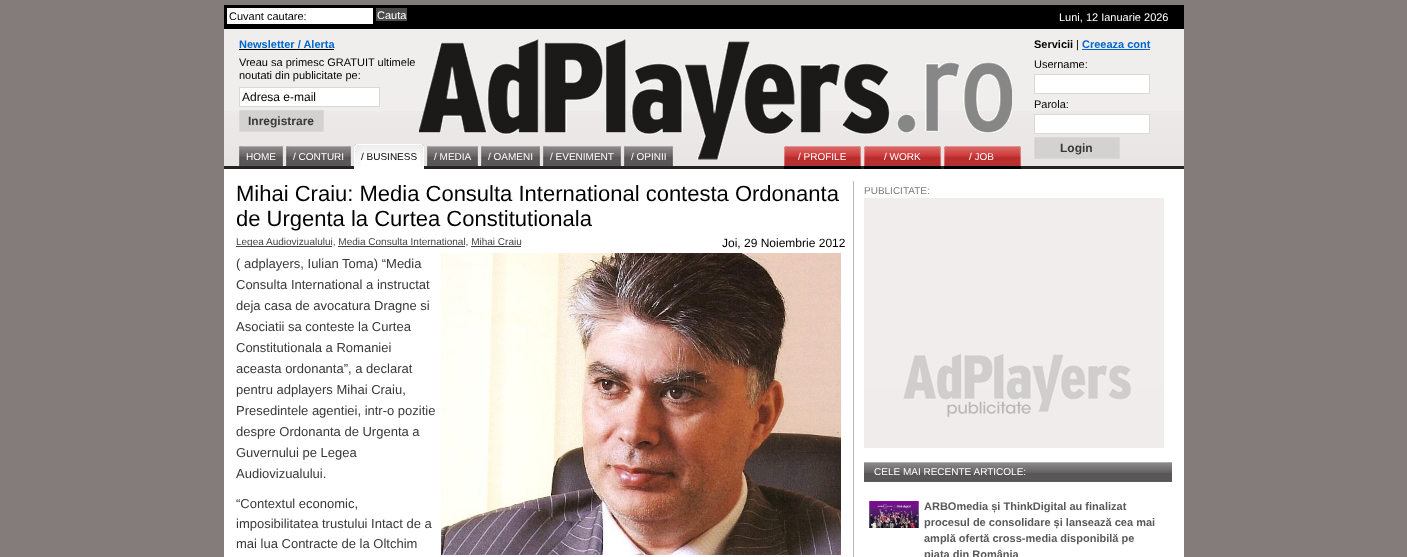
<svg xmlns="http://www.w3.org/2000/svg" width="1407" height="557">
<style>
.a{font:11px Liberation Sans;fill:#000}
.b{font:11px Liberation Sans;fill:#fff}
.c{font:bold 11px Liberation Sans;fill:#06c}
.d{font:12px Liberation Sans;fill:#000}
.e{font:bold 12px Liberation Sans;fill:#383838}
.f{font:bold 11px Liberation Sans;fill:#000}
.g{font:10px Liberation Sans;fill:#fff}
.h{font:10px Liberation Sans;fill:#000}
.i{font:22px Liberation Sans;fill:#000}
.j{font:10px Liberation Sans;fill:#444}
.k{font:13px Liberation Sans;fill:#383838}
.l{font:10px Liberation Sans;fill:#7b7b7b}
.m{font:bold 11px Liberation Sans;fill:#595959}
</style>
<rect width="100%" height="100%" fill="#837c7a"/>
<path fill="#fff" d="M224 169h960v388H224z"/>
<path fill="#f0eeed" d="M224 29h960v82H224z"/>
<image href="1.png" x="224" y="111" width="960" height="58"/>
<path fill="#000" d="M224 5h960v24H224z"/>
<path fill="#fff" d="M227 8h146v16H227z"/>
<path fill="#4c4c4c" d="M376 8h31v13H376z"/>
<image href="2.png" x="419" y="39" width="593" height="121"/>
<path fill="#000" d="M239 49h95v1H239z"/>
<path fill="#fff" stroke="#d9d8d6" d="M239.5 87.5h140v19H239.5z"/>
<path fill="#d3d2d1" stroke="#d9d8d6" d="M239.5 110.5h84v21H239.5z"/>
<path fill="#06c" d="M1082 49h68v1H1082z"/>
<path fill="#fff" stroke="#d9d8d6" d="M1034.5 74.5h115v19H1034.5z"/>
<path fill="#fff" stroke="#d9d8d6" d="M1034.5 114.5h115v19H1034.5z"/>
<path fill="#d3d2d1" stroke="#d9d8d6" d="M1034.5 137.5h85v21H1034.5z"/>
<image href="3.png" x="239" y="146" width="42" height="20"/>
<image href="4.png" x="281" y="146" width="2" height="20"/>
<image href="5.png" x="286" y="146" width="63" height="20"/>
<image href="4.png" x="349" y="146" width="2" height="20"/>
<image href="6.png" x="354" y="144" width="70" height="25"/>
<image href="7.png" x="420" y="144" width="4" height="24"/>
<image href="8.png" x="427" y="146" width="49" height="20"/>
<image href="4.png" x="476" y="146" width="2" height="20"/>
<image href="9.png" x="481" y="146" width="57" height="20"/>
<image href="4.png" x="538" y="146" width="2" height="20"/>
<image href="10.png" x="543" y="146" width="76" height="20"/>
<image href="4.png" x="619" y="146" width="2" height="20"/>
<image href="11.png" x="624" y="146" width="47" height="20"/>
<image href="4.png" x="671" y="146" width="2" height="20"/>
<image href="12.png" x="860" y="166" width="1" height="3"/>
<image href="13.png" x="784" y="146" width="76" height="23"/>
<image href="14.png" x="858" y="146" width="3" height="20"/>
<image href="12.png" x="940" y="166" width="1" height="3"/>
<image href="13.png" x="864" y="146" width="76" height="23"/>
<image href="14.png" x="938" y="146" width="3" height="20"/>
<image href="12.png" x="1020" y="166" width="1" height="3"/>
<image href="13.png" x="944" y="146" width="76" height="23"/>
<image href="14.png" x="1018" y="146" width="3" height="20"/>
<path fill="#b7b7b7" d="M853 181h1v376H853z"/>
<path fill="#444" d="M236 246h96v1H236z"/>
<path fill="#444" d="M338 246h127v1H338z"/>
<path fill="#444" d="M471 246h50v1H471z"/>
<image href="15.png" x="441" y="253" width="400" height="302"/>
<image href="16.png" x="864" y="198" width="300" height="250"/>
<image href="17.png" x="864" y="462" width="308" height="20"/>
<image href="18.png" x="869" y="501" width="50" height="27"/>
<text class="a" x="229" y="20">Cuvant cautare:</text>
<text class="b" x="377" y="19">Cauta</text>
<text class="b" x="1059" y="21">Luni, 12 Ianuarie 2026</text>
<text class="c" x="239" y="48">Newsletter / Alerta</text>
<text class="a" x="239" y="66">Vreau sa primesc GRATUIT ultimele</text>
<text class="a" x="239" y="79">noutati din publicitate pe:</text>
<text class="d" x="242" y="101">Adresa e-mail</text>
<text class="e" x="248" y="125">Inregistrare</text>
<text class="f" x="1034" y="48">Servicii</text>
<text class="a" x="1076" y="48">|</text>
<text class="c" x="1082" y="48">Creeaza cont</text>
<text class="a" x="1034" y="68">Username:</text>
<text class="a" x="1034" y="108">Parola:</text>
<text class="e" x="1060" y="152">Login</text>
<text class="g" x="246" y="160">HOME</text>
<text class="g" x="293" y="160">/ CONTURI</text>
<text class="h" x="361" y="160">/ BUSINESS</text>
<text class="g" x="434" y="160">/ MEDIA</text>
<text class="g" x="488" y="160">/ OAMENI</text>
<text class="g" x="550" y="160">/ EVENIMENT</text>
<text class="g" x="631" y="160">/ OPINII</text>
<text class="g" x="798" y="160">/ PROFILE</text>
<text class="g" x="884" y="160">/ WORK</text>
<text class="g" x="969" y="160">/ JOB</text>
<text class="i" x="236" y="201">Mihai Craiu: Media Consulta International contesta Ordonanta</text>
<text class="i" x="236" y="226">de Urgenta la Curtea Constitutionala</text>
<text class="j" x="236" y="245">Legea Audiovizualului, Media Consulta International, Mihai Craiu</text>
<text class="d" x="722" y="247">Joi, 29 Noiembrie 2012</text>
<text class="k" x="236" y="268">( adplayers, Iulian Toma) “Media</text>
<text class="k" x="236" y="289">Consulta International a instructat</text>
<text class="k" x="236" y="310">deja casa de avocatura Dragne si</text>
<text class="k" x="236" y="331">Asociatii sa conteste la Curtea</text>
<text class="k" x="236" y="352">Constitutionala a Romaniei</text>
<text class="k" x="236" y="373">aceasta ordonanta”, a declarat</text>
<text class="k" x="236" y="394">pentru adplayers Mihai Craiu,</text>
<text class="k" x="236" y="415">Presedintele agentiei, intr-o pozitie</text>
<text class="k" x="236" y="436">despre Ordonanta de Urgenta a</text>
<text class="k" x="236" y="457">Guvernului pe Legea</text>
<text class="k" x="236" y="478">Audiovizualului.</text>
<text class="k" x="236" y="508">“Contextul economic,</text>
<text class="k" x="236" y="528">imposibilitatea trustului Intact de a</text>
<text class="k" x="236" y="548">mai lua Contracte de la Oltchim</text>
<text class="l" x="864" y="194">PUBLICITATE:</text>
<text class="g" x="874" y="475">CELE MAI RECENTE ARTICOLE:</text>
<text class="m" x="924" y="510">ARBOmedia și ThinkDigital au finalizat</text>
<text class="m" x="924" y="526">procesul de consolidare și lansează cea mai</text>
<text class="m" x="924" y="542">amplă ofertă cross-media disponibilă pe</text>
<text class="m" x="924" y="558">piața din România</text>
</svg>
